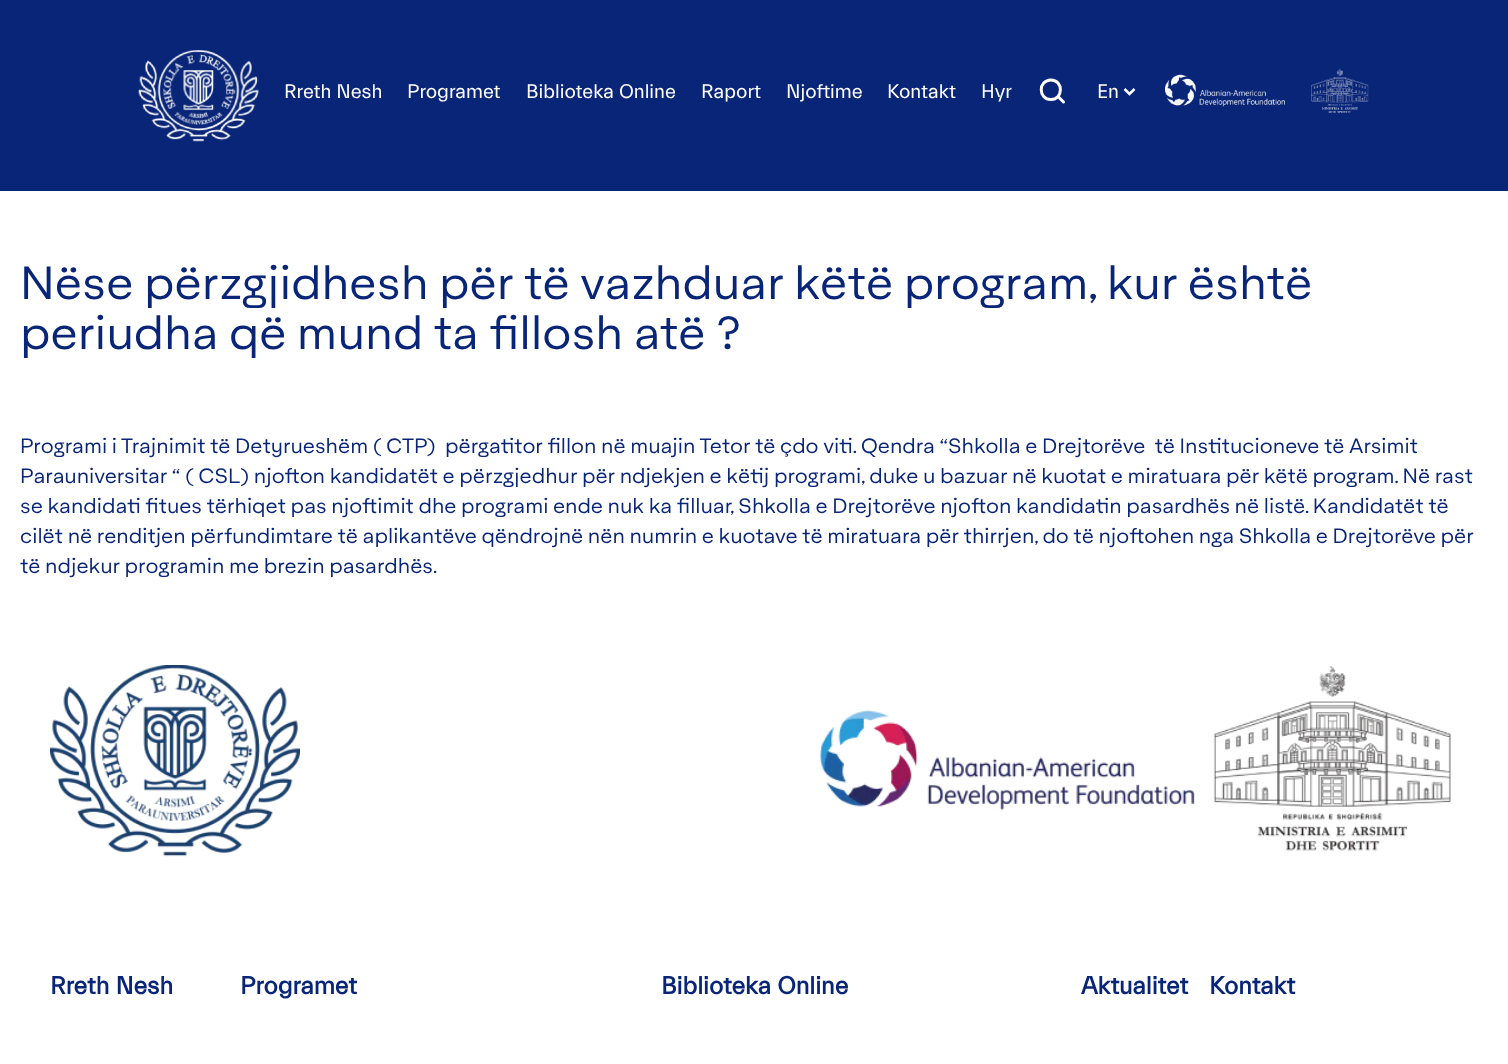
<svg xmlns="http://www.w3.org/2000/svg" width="1508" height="1064">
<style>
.a{font:20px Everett;fill:#fff}
.b{font:45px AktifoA;fill:#092578}
.c{font:20px AktifoA;fill:#092578}
.d{font:bold 25px Everett;fill:#092578}
</style>
<rect width="100%" height="100%" fill="#fff"/>
<path fill="#092578" d="M0 0h1508v191H0z"/>
<image href="1.png" x="138" y="50" width="121" height="92"/>
<path fill="none" stroke="#fff" stroke-width="3" stroke-linecap="round" stroke-linejoin="round" d="M1051 99.5c12.5 0 12.5-19.5 0-19.5c-13 0-13 19.5 0 19.5zm7-3l5.5 5.5"/>
<path fill="none" stroke="#fff" stroke-width="2.5" d="M1124.5 89l5 5l5-5"/>
<image href="2.png" x="1165" y="74" width="120" height="33"/>
<image href="3.png" x="1311" y="68" width="58" height="45"/>
<image href="4.png" x="50" y="665" width="250" height="192"/>
<image href="5.png" x="819" y="710" width="376" height="101"/>
<image href="6.png" x="1213" y="666" width="238" height="185"/>
<text class="a" x="284" y="98">Rreth Nesh</text>
<text class="a" x="407" y="98">Programet</text>
<text class="a" x="526" y="98">Biblioteka Online</text>
<text class="a" x="701" y="98">Raport</text>
<text class="a" x="786" y="98">Njoftime</text>
<text class="a" x="887" y="98">Kontakt</text>
<text class="a" x="981" y="98">Hyr</text>
<text class="a" x="1097" y="98">En</text>
<text class="b" x="20" y="299">Nëse përzgjidhesh për të vazhduar këtë program, kur është</text>
<text class="b" x="20" y="349">periudha që mund ta fillosh atë ?</text>
<text class="c" xml:space="preserve" x="20" y="453">Programi i Trajnimit të Detyrueshëm ( CTP)  përgatitor fillon në muajin Tetor të çdo viti. Qendra “Shkolla e Drejtorëve  të Institucioneve të Arsimit</text>
<text class="c" x="20" y="483">Parauniversitar “ ( CSL) njofton kandidatët e përzgjedhur për ndjekjen e këtij programi, duke u bazuar në kuotat e miratuara për këtë program. Në rast</text>
<text class="c" x="20" y="513">se kandidati fitues tërhiqet pas njoftimit dhe programi ende nuk ka filluar, Shkolla e Drejtorëve njofton kandidatin pasardhës në listë. Kandidatët të</text>
<text class="c" x="20" y="543">cilët në renditjen përfundimtare të aplikantëve qëndrojnë nën numrin e kuotave të miratuara për thirrjen, do të njoftohen nga Shkolla e Drejtorëve për</text>
<text class="c" x="20" y="573">të ndjekur programin me brezin pasardhës.</text>
<text class="d" x="50" y="994">Rreth Nesh</text>
<text class="d" x="240" y="994">Programet</text>
<text class="d" x="661" y="994">Biblioteka Online</text>
<text class="d" x="1081" y="994">Aktualitet</text>
<text class="d" x="1209" y="994">Kontakt</text>
</svg>
